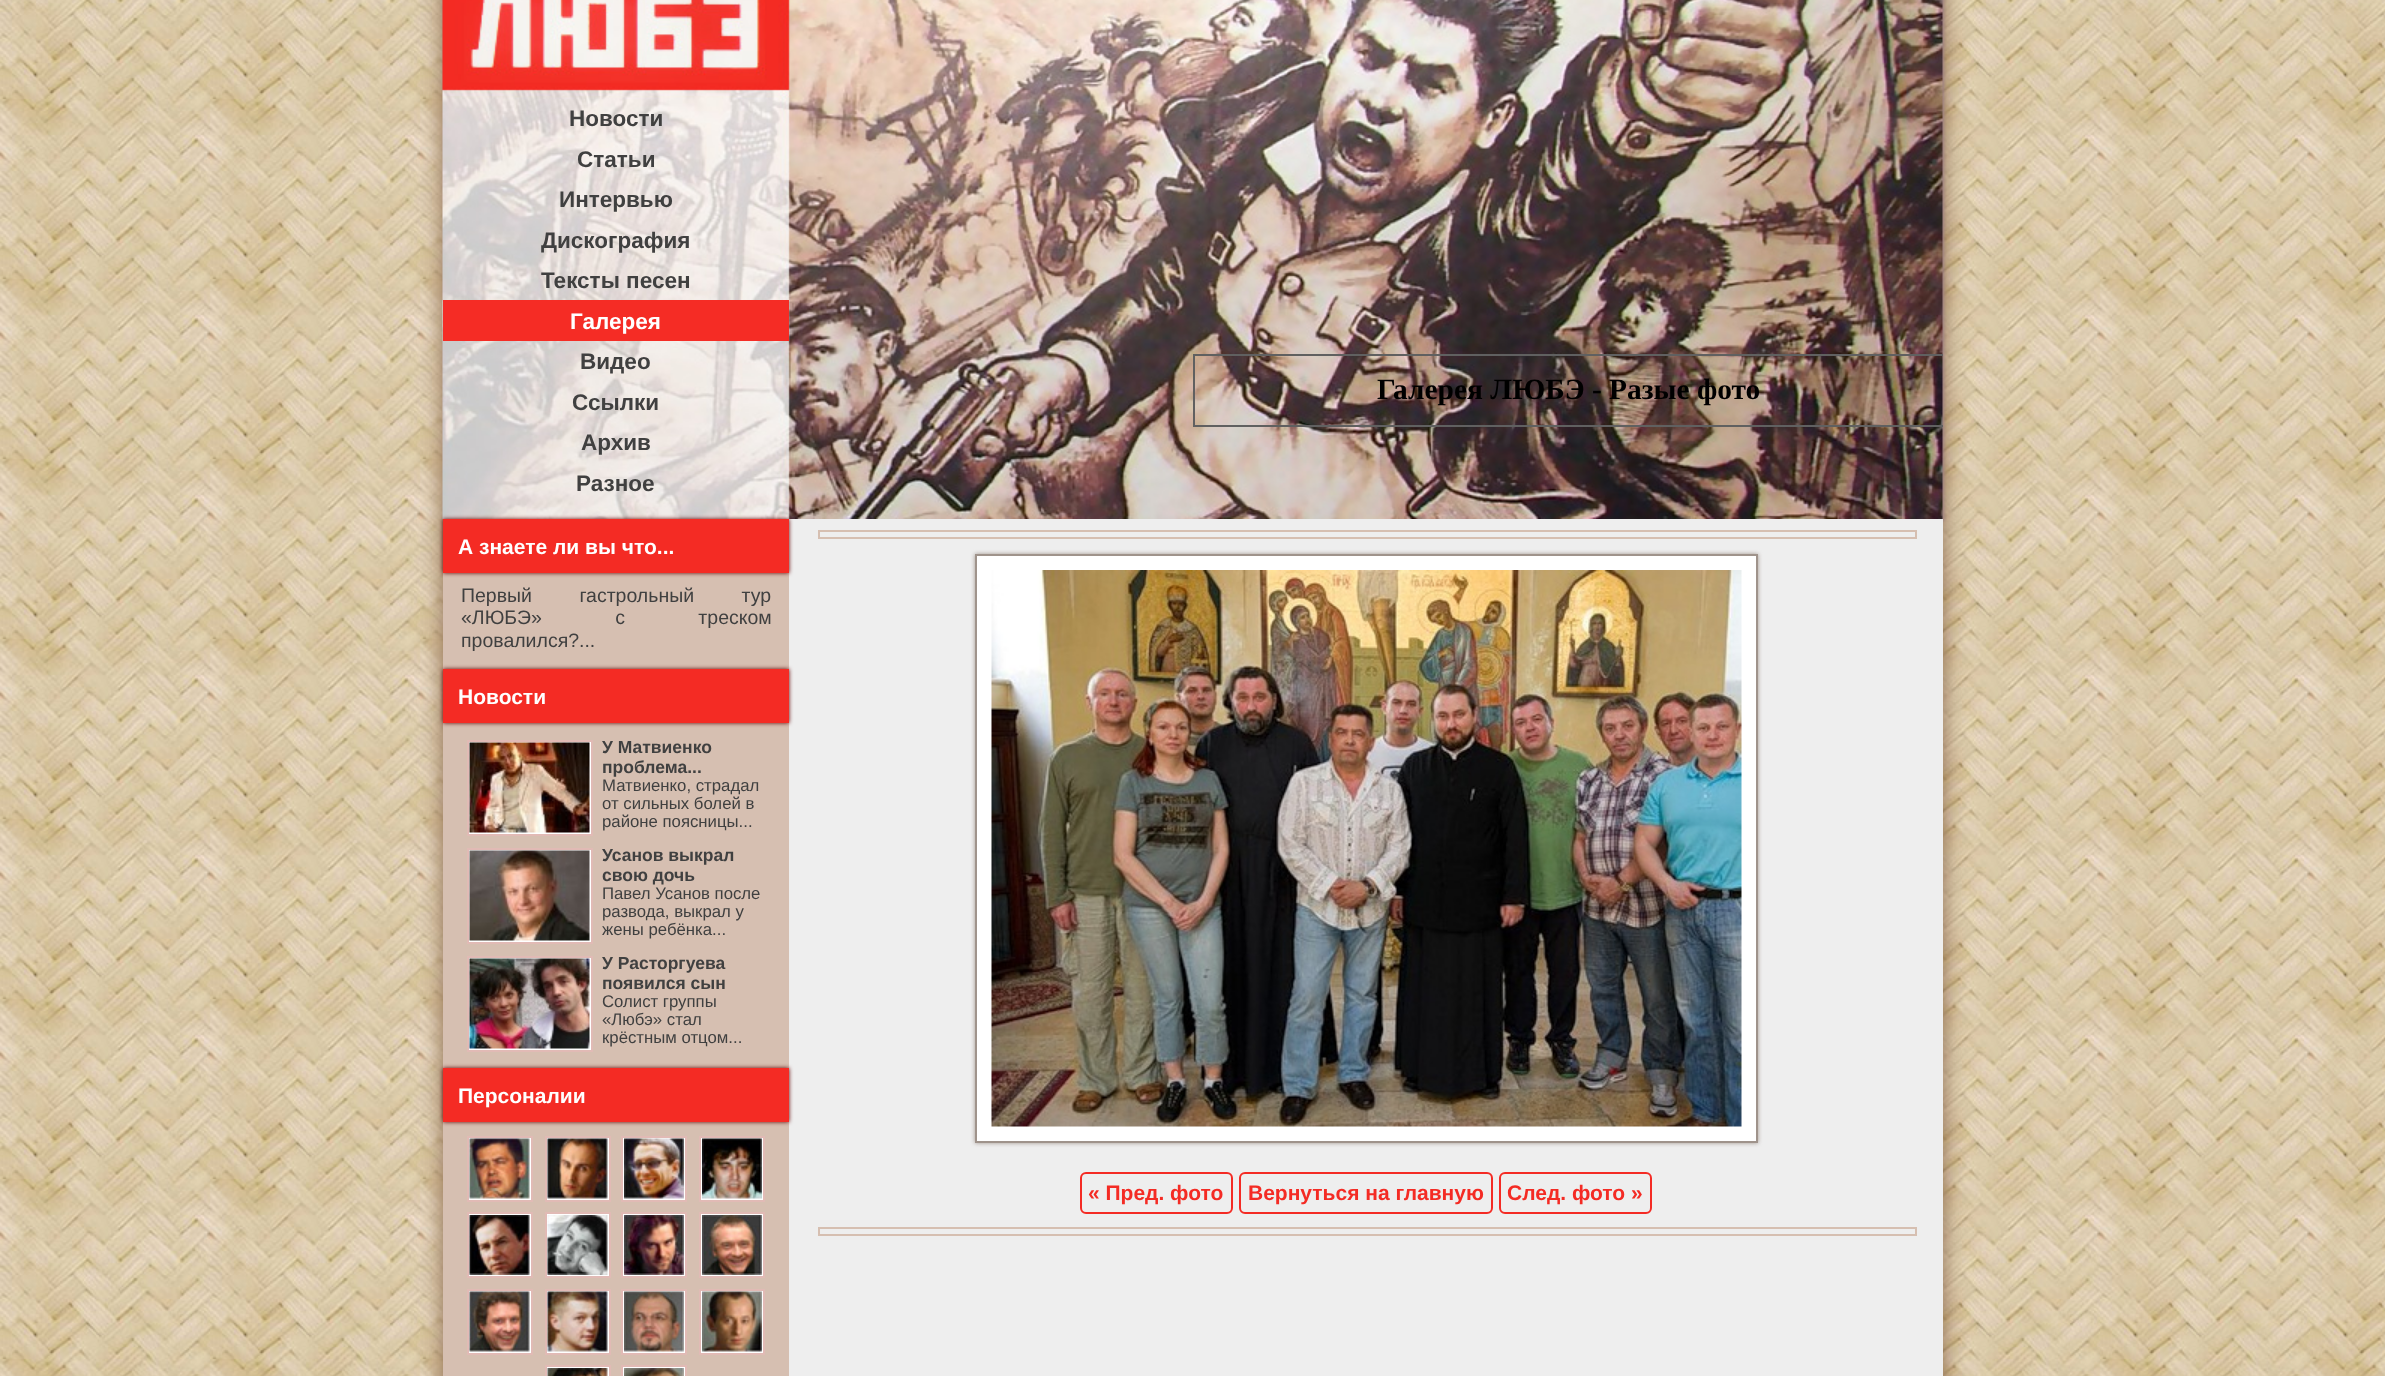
<svg xmlns="http://www.w3.org/2000/svg" width="2385" height="1376">
<style>
.a{font:bold 22.5px Liberation Sans;fill:#404040}
.b{font:bold 22.5px Liberation Sans;fill:#fff}
.c{font:bold 29.4px Liberation Serif;fill:#000}
.d{font:bold 21px Liberation Sans;fill:#fff}
.e{font:19.5px Liberation Sans;fill:#404040}
.f{font:bold 17.5px Liberation Sans;fill:#404040}
.g{font:16.75px Liberation Sans;fill:#404040}
.h{font:bold 21px Liberation Sans;fill:#f42b24}
</style>
<rect width="100%" height="100%" fill="#fff"/>
<image href="1.png" x="0" y="0" width="2385" height="1376"/>
<path fill="#8e6b55" filter="blur(11px)" d="M443 -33h1500v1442H443z"/>
<path fill="#9f8182" filter="blur(1.5px)" d="M444 -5h1500v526H444z"/>
<image href="2.png" x="442" y="0" width="1501" height="519"/>
<path fill="#f52c25" d="M443 300h346v41H443z"/>
<path fill="#606060" d="M1193 354h750v2H1193z"/>
<path fill="#606060" d="M1193 425h750v2H1193z"/>
<path fill="#606060" d="M1193 354h2v72H1193z"/>
<path fill="#eee" d="M789 519h1154v857H789z"/>
<path fill="#d6bfb1" d="M443 573h346v803H443z"/>
<path fill="#5f0200" filter="blur(2px)" d="M443 519h346v54H443z"/>
<path fill="#f42b24" d="M443 519h346v54H443z"/>
<path fill="#5f0200" filter="blur(2px)" d="M443 669h346v54H443z"/>
<path fill="#f42b24" d="M443 669h346v54H443z"/>
<path fill="#fff" stroke="#e1bab5" stroke-width="2" d="M468 741h124v94H468z"/>
<image href="3.png" x="469" y="742" width="121" height="91"/>
<path fill="#fff" stroke="#e1bab5" stroke-width="2" d="M468 849h124v94H468z"/>
<image href="4.png" x="469" y="850" width="121" height="91"/>
<path fill="#fff" stroke="#e1bab5" stroke-width="2" d="M468 957h124v94H468z"/>
<image href="5.png" x="469" y="958" width="121" height="91"/>
<path fill="#5f0200" filter="blur(2px)" d="M443 1068h346v54H443z"/>
<path fill="#f42b24" d="M443 1068h346v54H443z"/>
<path fill="#fff" stroke="#e1bab5" stroke-width="2" d="M468 1137h64v64H468z"/>
<path fill="#fff" stroke="#e1bab5" stroke-width="2" d="M546 1137h64v64H546z"/>
<path fill="#fff" stroke="#e1bab5" stroke-width="2" d="M622 1137h64v64H622z"/>
<path fill="#fff" stroke="#e1bab5" stroke-width="2" d="M700 1137h64v64H700z"/>
<image href="6.png" x="469" y="1138" width="61" height="61"/>
<image href="7.png" x="547" y="1138" width="61" height="61"/>
<image href="8.png" x="624" y="1138" width="60" height="61"/>
<image href="9.png" x="702" y="1138" width="60" height="61"/>
<path fill="#fff" stroke="#e1bab5" stroke-width="2" d="M468 1213h64v64H468z"/>
<path fill="#fff" stroke="#e1bab5" stroke-width="2" d="M546 1213h64v64H546z"/>
<path fill="#fff" stroke="#e1bab5" stroke-width="2" d="M622 1213h64v64H622z"/>
<path fill="#fff" stroke="#e1bab5" stroke-width="2" d="M700 1213h64v64H700z"/>
<image href="10.png" x="469" y="1215" width="61" height="60"/>
<image href="11.png" x="547" y="1215" width="61" height="60"/>
<image href="12.png" x="624" y="1215" width="60" height="60"/>
<image href="13.png" x="702" y="1215" width="60" height="60"/>
<path fill="#fff" stroke="#e1bab5" stroke-width="2" d="M468 1290h64v64H468z"/>
<path fill="#fff" stroke="#e1bab5" stroke-width="2" d="M546 1290h64v64H546z"/>
<path fill="#fff" stroke="#e1bab5" stroke-width="2" d="M622 1290h64v64H622z"/>
<path fill="#fff" stroke="#e1bab5" stroke-width="2" d="M700 1290h64v64H700z"/>
<image href="14.png" x="469" y="1291" width="61" height="61"/>
<image href="15.png" x="547" y="1291" width="61" height="61"/>
<image href="16.png" x="624" y="1291" width="60" height="61"/>
<image href="17.png" x="702" y="1291" width="60" height="61"/>
<path fill="#fff" stroke="#e1bab5" stroke-width="2" d="M546 1366h64v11H546z"/>
<path fill="#fff" stroke="#e1bab5" stroke-width="2" d="M622 1366h64v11H622z"/>
<image href="18.png" x="547" y="1368" width="61" height="8"/>
<image href="19.png" x="624" y="1368" width="60" height="8"/>
<path fill="none" stroke="#d6bfb1" stroke-width="2" d="M819 531h1097v7H819z"/>
<path fill="#9f938b" filter="blur(2px)" d="M975 554h783v589H975z"/>
<path fill="#fff" stroke="#9f938b" stroke-width="2" d="M976 555h781v587H976z"/>
<image href="20.png" x="991" y="570" width="751" height="557"/>
<rect fill="none" stroke="#f42b24" stroke-width="2" x="1081" y="1173" width="151" height="40" rx="5"/>
<rect fill="none" stroke="#f42b24" stroke-width="2" x="1240" y="1173" width="252" height="40" rx="5"/>
<rect fill="none" stroke="#f42b24" stroke-width="2" x="1500" y="1173" width="151" height="40" rx="5"/>
<path fill="none" stroke="#d6bfb1" stroke-width="2" d="M819 1228h1097v7H819z"/>
<text class="a" x="569" y="126">Новости</text>
<text class="a" x="577" y="167">Статьи</text>
<text class="a" x="559" y="207">Интервью</text>
<text class="a" x="541" y="248">Дискография</text>
<text class="a" x="541" y="288">Тексты песен</text>
<text class="b" x="570" y="329">Галерея</text>
<text class="a" x="580" y="369">Видео</text>
<text class="a" x="572" y="410">Ссылки</text>
<text class="a" x="581" y="450">Архив</text>
<text class="a" x="576" y="491">Разное</text>
<text class="c" x="1377" y="399">Галерея ЛЮБЭ - Разые фото</text>
<text class="d" x="458" y="554">А знаете ли вы что...</text>
<text class="e" x="461" y="602" word-spacing="42">Первый гастрольный тур</text>
<text class="e" x="461" y="624" word-spacing="68">«ЛЮБЭ» с треском</text>
<text class="e" x="461" y="647">провалился?...</text>
<text class="d" x="458" y="704">Новости</text>
<text class="f" x="602" y="753">У Матвиенко</text>
<text class="f" x="602" y="773">проблема...</text>
<text class="g" x="602" y="791">Матвиенко, страдал</text>
<text class="g" x="602" y="809">от сильных болей в</text>
<text class="g" x="602" y="827">районе поясницы...</text>
<text class="f" x="602" y="861">Усанов выкрал</text>
<text class="f" x="602" y="881">свою дочь</text>
<text class="g" x="602" y="899">Павел Усанов после</text>
<text class="g" x="602" y="917">развода, выкрал у</text>
<text class="g" x="602" y="935">жены ребёнка...</text>
<text class="f" x="602" y="969">У Расторгуева</text>
<text class="f" x="602" y="989">появился сын</text>
<text class="g" x="602" y="1007">Солист группы</text>
<text class="g" x="602" y="1025">«Любэ» стал</text>
<text class="g" x="602" y="1043">крёстным отцом...</text>
<text class="d" x="458" y="1103">Персоналии</text>
<text class="h" x="1088" y="1200">« Пред. фото</text>
<text class="h" x="1248" y="1200">Вернуться на главную</text>
<text class="h" x="1507" y="1200">След. фото »</text>
</svg>
